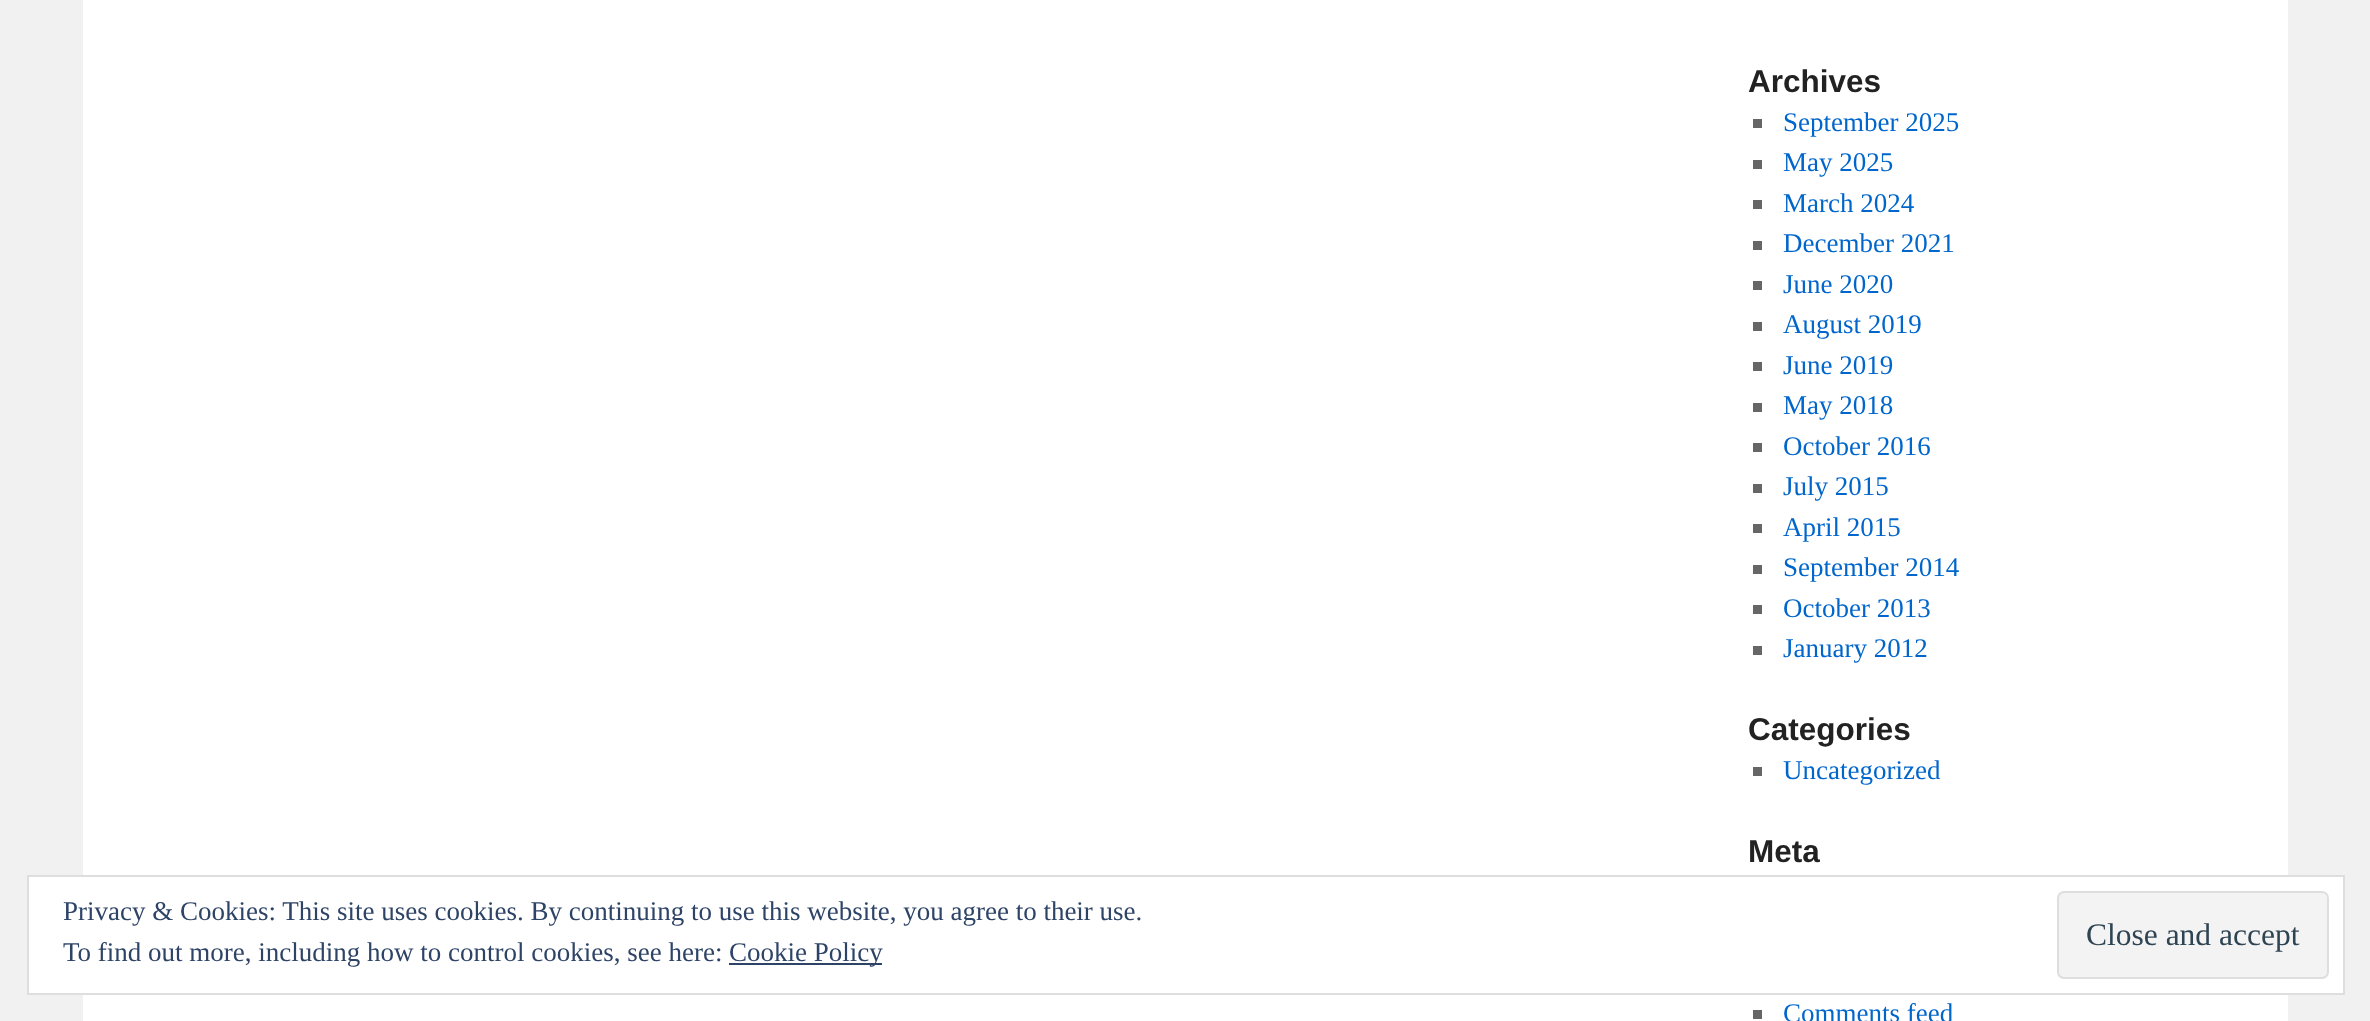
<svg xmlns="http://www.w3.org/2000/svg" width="2370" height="1021">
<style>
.a{font:bold 31.5px Liberation Sans;fill:#222}
.b{font:27px Liberation Serif;fill:#06c}
.c{font:27px Liberation Serif;fill:#2e4467}
.d{font:31.5px Liberation Serif;fill:#2e4453}
</style>
<rect width="100%" height="100%" fill="#f1f1f1"/>
<path fill="#fff" d="M83 0h2205v1021H83z"/>
<path fill="#666" d="M1753 119h9v9H1753z"/>
<path fill="#666" d="M1753 160h9v9H1753z"/>
<path fill="#666" d="M1753 200h9v9H1753z"/>
<path fill="#666" d="M1753 241h9v9H1753z"/>
<path fill="#666" d="M1753 281h9v9H1753z"/>
<path fill="#666" d="M1753 322h9v9H1753z"/>
<path fill="#666" d="M1753 362h9v9H1753z"/>
<path fill="#666" d="M1753 403h9v9H1753z"/>
<path fill="#666" d="M1753 443h9v9H1753z"/>
<path fill="#666" d="M1753 484h9v9H1753z"/>
<path fill="#666" d="M1753 524h9v9H1753z"/>
<path fill="#666" d="M1753 565h9v9H1753z"/>
<path fill="#666" d="M1753 605h9v9H1753z"/>
<path fill="#666" d="M1753 646h9v9H1753z"/>
<path fill="#666" d="M1753 767h9v9H1753z"/>
<path fill="#666" d="M1753 1010h9v9H1753z"/>
<path fill="#fff" stroke="#dedede" stroke-width="2" d="M28 876h2316v118H28z"/>
<rect fill="#f3f3f3" stroke="#dedede" stroke-width="2" x="2058" y="892" width="270" height="86" rx="6"/>
<path fill="#2e4467" d="M729 963h153v2H729z"/>
<text class="a" x="1748" y="92">Archives</text>
<text class="b" x="1783" y="131">September 2025</text>
<text class="b" x="1783" y="171">May 2025</text>
<text class="b" x="1783" y="212">March 2024</text>
<text class="b" x="1783" y="252">December 2021</text>
<text class="b" x="1783" y="293">June 2020</text>
<text class="b" x="1783" y="333">August 2019</text>
<text class="b" x="1783" y="374">June 2019</text>
<text class="b" x="1783" y="414">May 2018</text>
<text class="b" x="1783" y="455">October 2016</text>
<text class="b" x="1783" y="495">July 2015</text>
<text class="b" x="1783" y="536">April 2015</text>
<text class="b" x="1783" y="576">September 2014</text>
<text class="b" x="1783" y="617">October 2013</text>
<text class="b" x="1783" y="657">January 2012</text>
<text class="a" x="1748" y="740">Categories</text>
<text class="b" x="1783" y="779">Uncategorized</text>
<text class="a" x="1748" y="862">Meta</text>
<text class="b" x="1783" y="1022">Comments feed</text>
<text class="c" x="63" y="920">Privacy &amp; Cookies: This site uses cookies. By continuing to use this website, you agree to their use.</text>
<text class="d" x="2086" y="945">Close and accept</text>
<text class="c" x="63" y="961">To find out more, including how to control cookies, see here:</text>
<text class="c" x="729" y="961">Cookie Policy</text>
</svg>
